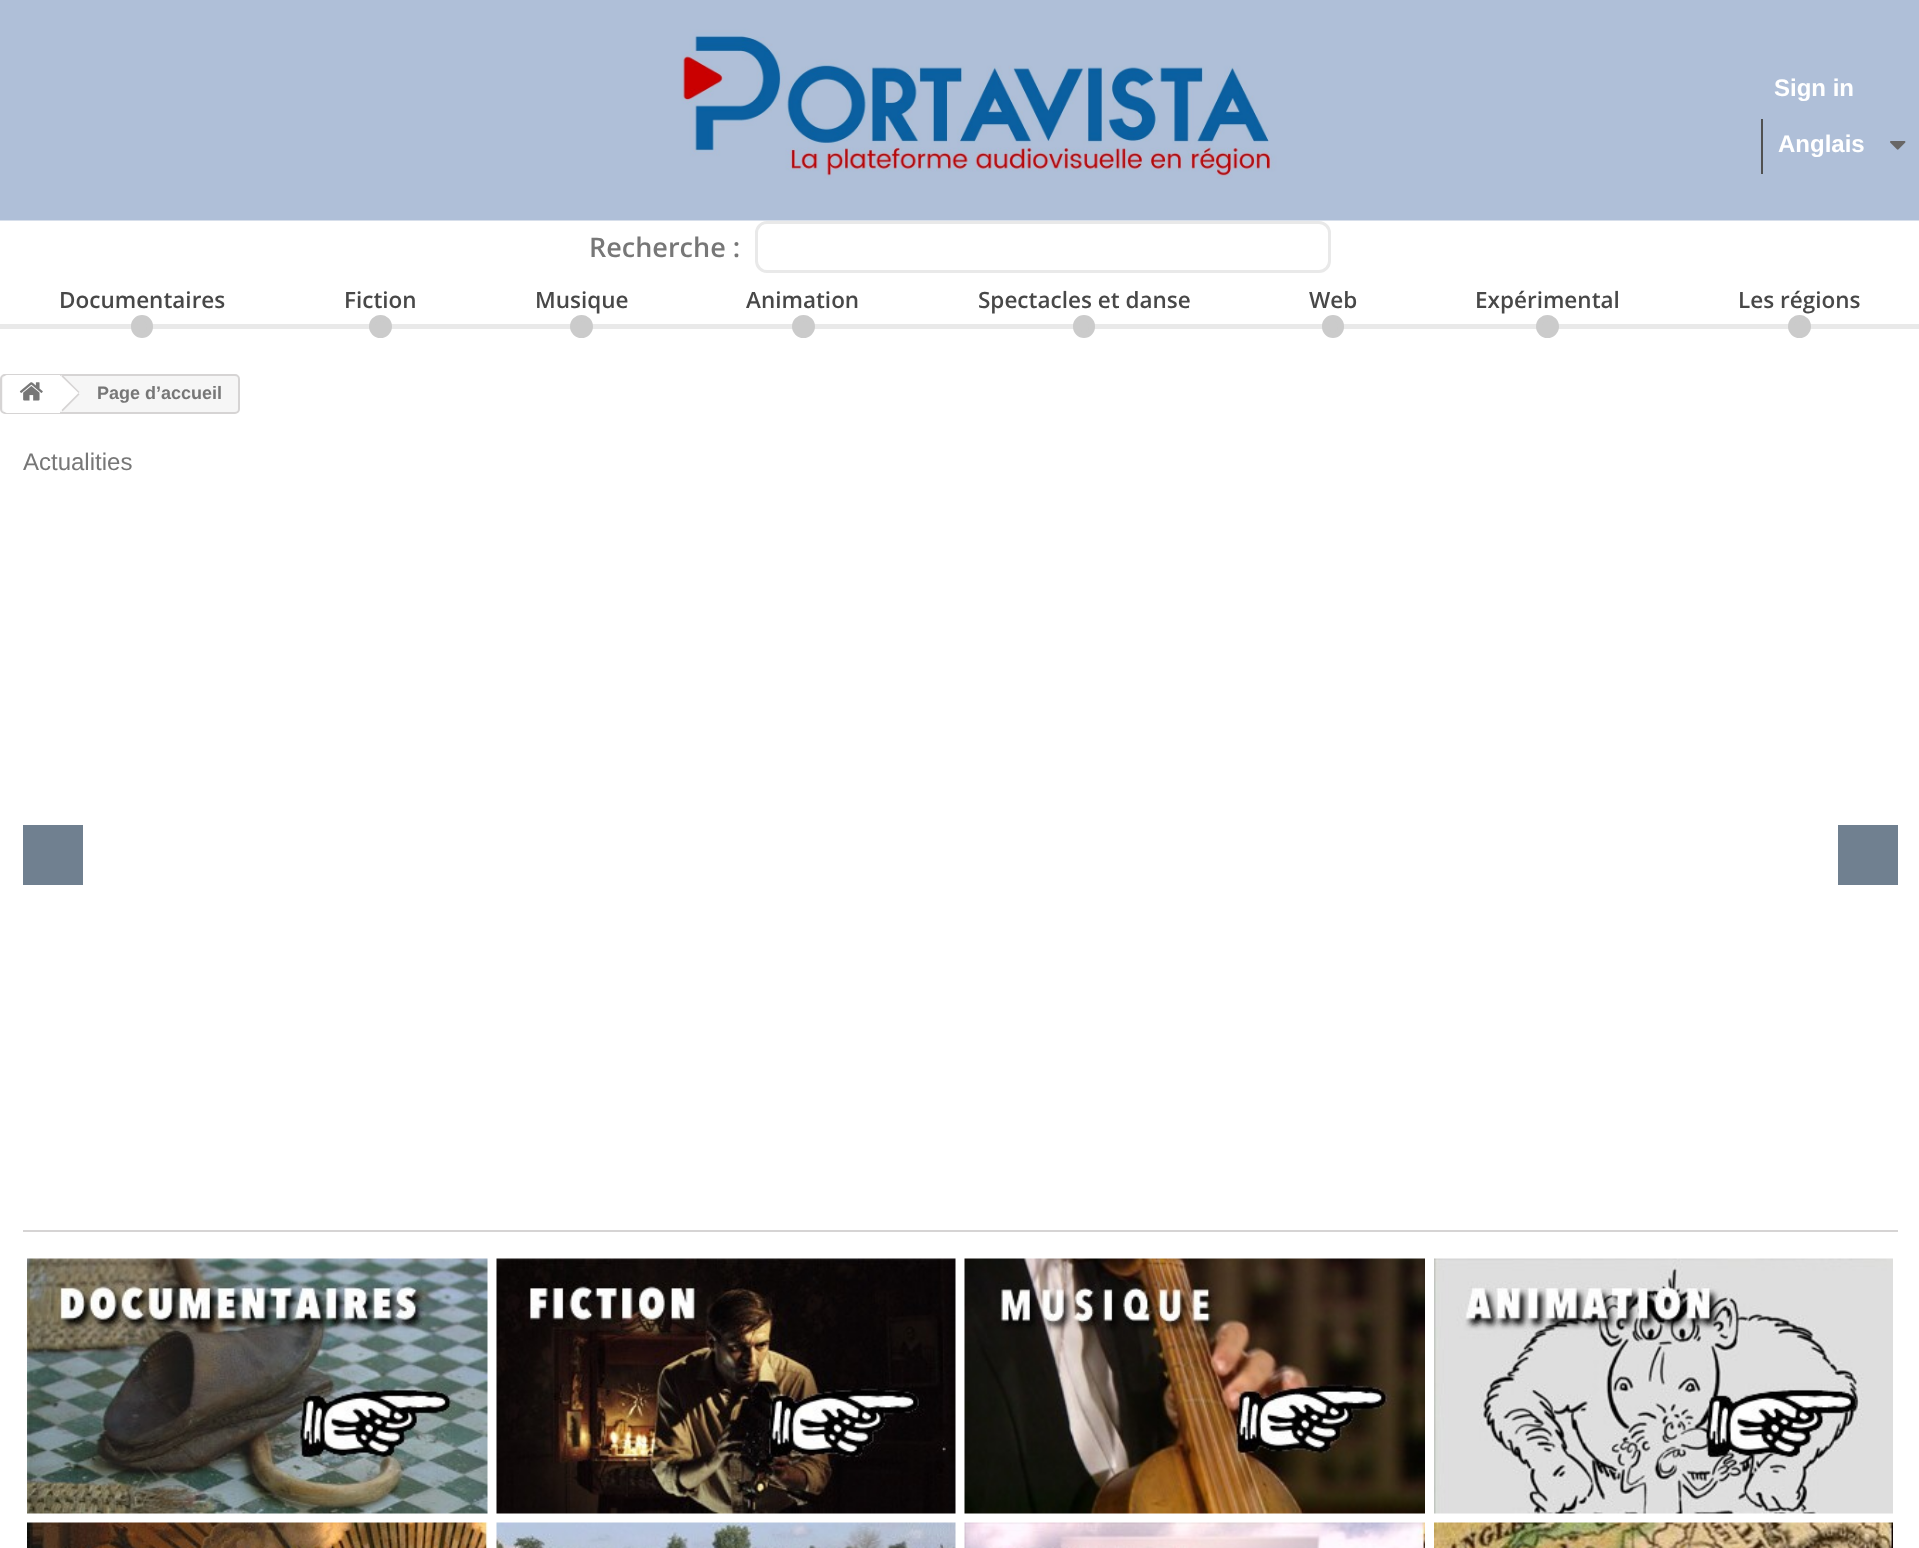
<svg xmlns="http://www.w3.org/2000/svg" width="1919" height="1548">
<style>
.a{font:bold 24px Liberation Sans;fill:#fff}
.b{font:600 27px Open Sans;fill:#777}
.c{font:600 22.5px Open Sans;fill:#484848}
.d{font:bold 18px Liberation Sans;fill:#777}
.e{font:24px Liberation Sans;fill:#777}
</style>
<rect width="100%" height="100%" fill="#fff"/>
<image href="1.png" x="0" y="0" width="1919" height="221"/>
<path fill="#515151" d="M1761 119h2v55H1761z"/>
<image href="2.png" x="1890" y="141" width="16" height="9"/>
<rect fill="none" stroke="#e9e9e9" stroke-width="3" x="756.5" y="222.5" width="573" height="49" rx="10.5"/>
<path fill="#e9e9e9" d="M0 324h1919v5H0z"/>
<rect fill="#cbcbcb" stroke="#cbcbcb" stroke-width="6" x="134" y="318" width="16" height="17" rx="8"/>
<circle fill="#cbcbcb" stroke="#cbcbcb" stroke-width="6" cx="380.5" cy="326.5" r="8.5"/>
<circle fill="#cbcbcb" stroke="#cbcbcb" stroke-width="6" cx="581.5" cy="326.5" r="8.5"/>
<circle fill="#cbcbcb" stroke="#cbcbcb" stroke-width="6" cx="803.5" cy="326.5" r="8.5"/>
<rect fill="#cbcbcb" stroke="#cbcbcb" stroke-width="6" x="1076" y="318" width="16" height="17" rx="8"/>
<rect fill="#cbcbcb" stroke="#cbcbcb" stroke-width="6" x="1325" y="318" width="16" height="17" rx="8"/>
<circle fill="#cbcbcb" stroke="#cbcbcb" stroke-width="6" cx="1547.5" cy="326.5" r="8.5"/>
<circle fill="#cbcbcb" stroke="#cbcbcb" stroke-width="6" cx="1799.5" cy="326.5" r="8.5"/>
<rect fill="#f6f6f6" stroke="#d6d4d4" stroke-width="2" x="1" y="375" width="238" height="38" rx="4"/>
<path fill="#fff" d="M8 375h52v38h-52c-3 0-5-2-5-5v-28c0-3 2-5 5-5z"/>
<image href="3.png" x="19" y="382" width="24" height="19"/>
<path fill="#fff" d="M63.5 376.5l15 14.5c1 1.5 1 3 0 4.5l-15 14.5c-1 1.5-3 1.5-4 0l-15-14.5c-1-1.5-1-3 0-4.5l15-14.5c1-1.5 3-1.5 4 0z"/>
<path fill="#d6d4d4" d="M62.5 375l17 17l-1 1l-17-16.5zm16 18l1 1.5l-17 17l-1-1.5z"/>
<path fill="#708090" d="M23 825h60v60H23z"/>
<path fill="#708090" d="M1838 825h60v60H1838z"/>
<path fill="#d6d4d4" d="M23 1230h1875v2H23z"/>
<image href="4.png" x="27" y="1258" width="461" height="256"/>
<image href="5.png" x="496" y="1258" width="460" height="256"/>
<image href="6.png" x="964" y="1258" width="461" height="256"/>
<image href="7.png" x="1434" y="1258" width="459" height="256"/>
<image href="8.png" x="27" y="1522" width="461" height="26"/>
<image href="9.png" x="496" y="1522" width="460" height="26"/>
<image href="10.png" x="964" y="1522" width="461" height="26"/>
<image href="11.png" x="1434" y="1522" width="459" height="26"/>
<text class="a" x="1774" y="96">Sign in</text>
<text class="a" x="1778" y="152">Anglais</text>
<text class="b" x="589" y="257">Recherche :</text>
<text class="c" x="59" y="308">Documentaires</text>
<text class="c" x="344" y="308">Fiction</text>
<text class="c" x="535" y="308">Musique</text>
<text class="c" x="746" y="308">Animation</text>
<text class="c" x="978" y="308">Spectacles et danse</text>
<text class="c" x="1309" y="308">Web</text>
<text class="c" x="1475" y="308">Expérimental</text>
<text class="c" x="1738" y="308">Les régions</text>
<text class="d" x="97" y="399">Page d’accueil</text>
<text class="e" x="23" y="470">Actualities</text>
</svg>
